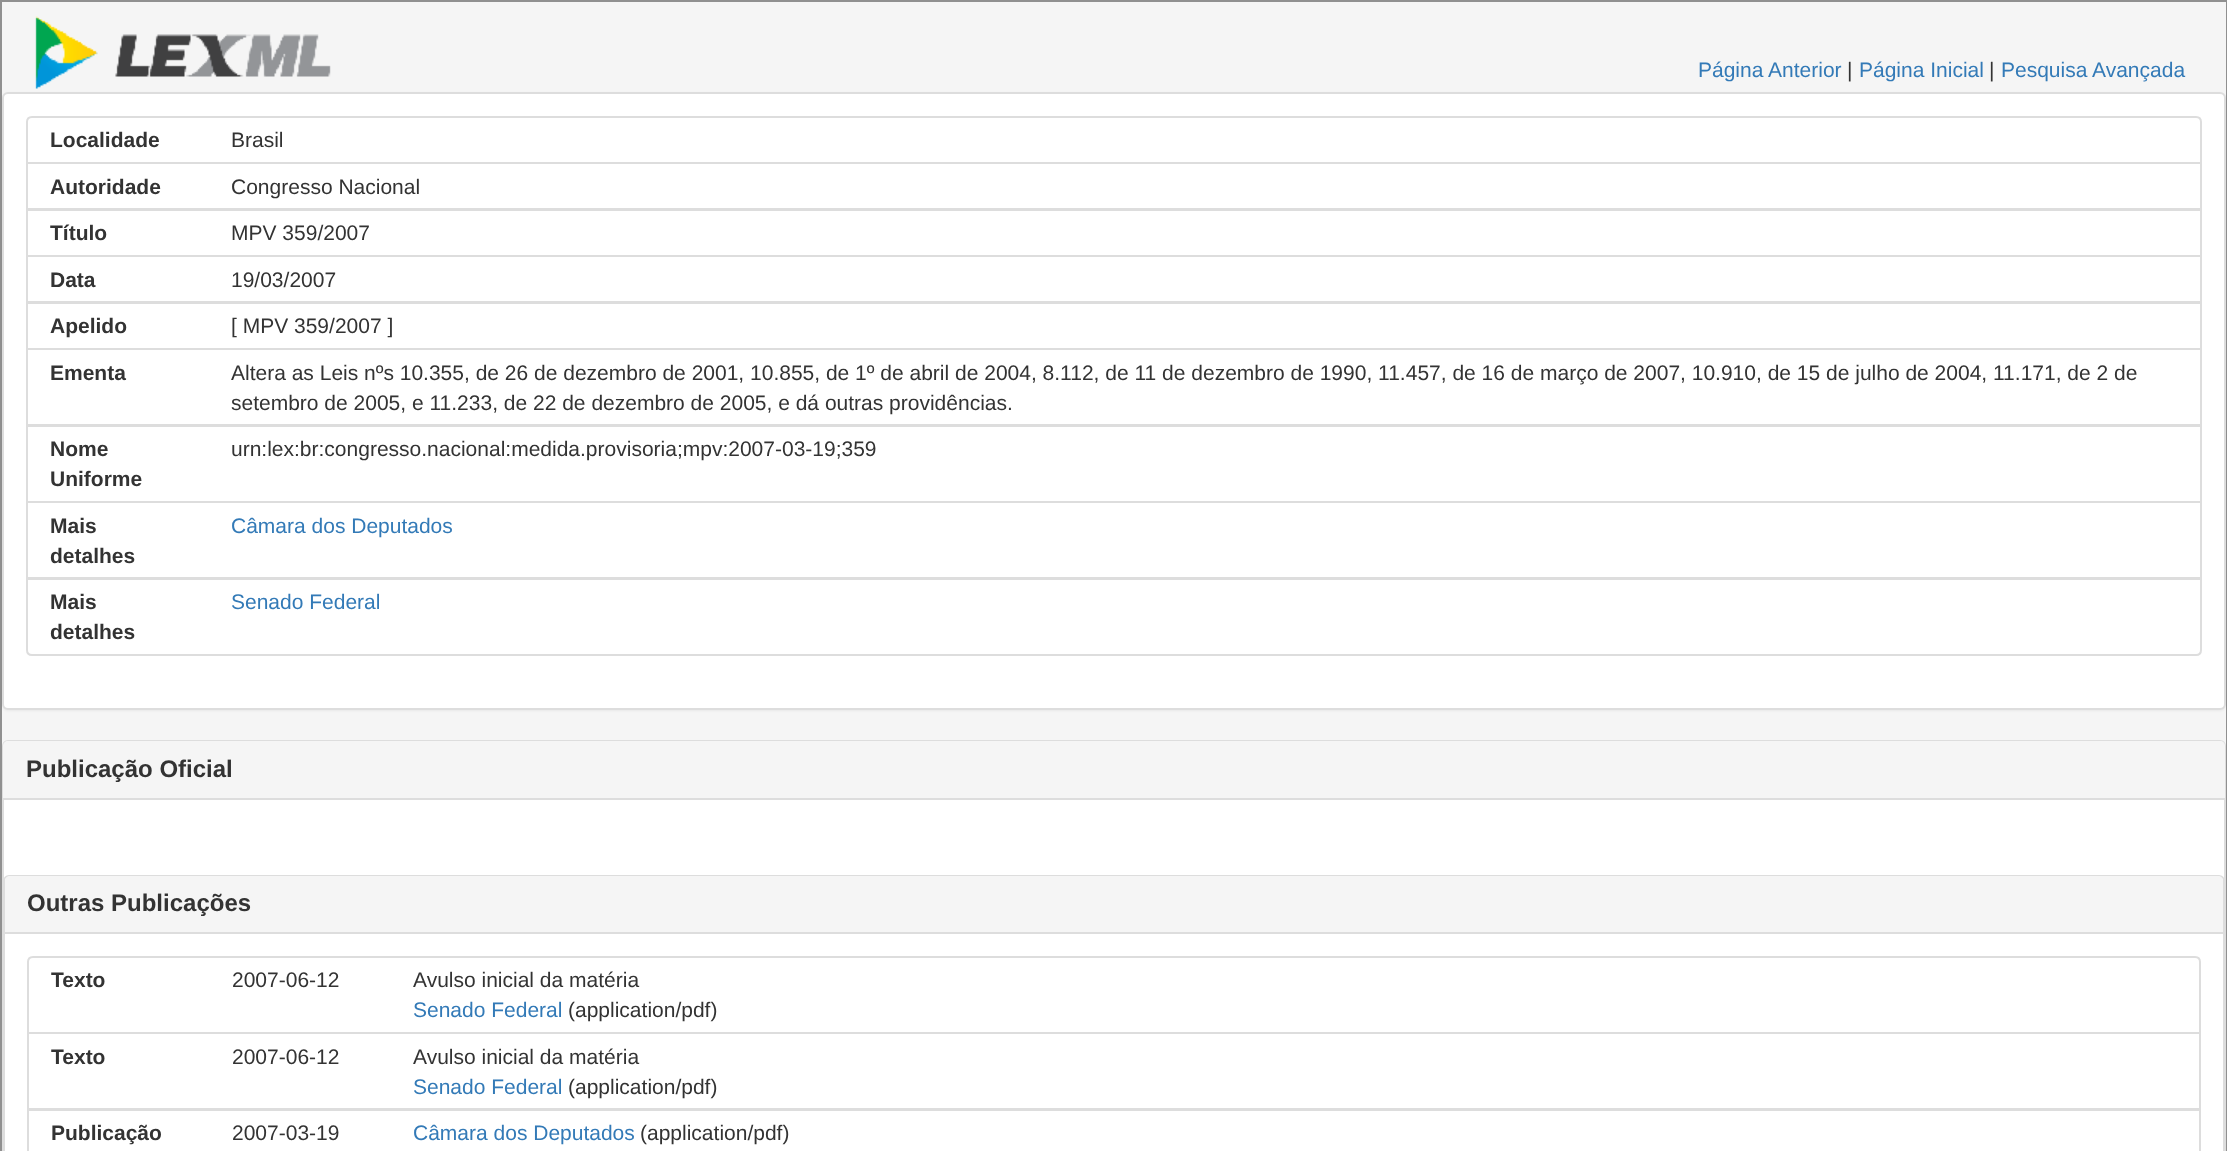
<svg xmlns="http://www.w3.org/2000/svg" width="2227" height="1151">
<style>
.a{font:21px Liberation Sans;fill:#337ab7}
.b{font:21px Liberation Sans;fill:#333}
.c{font:bold 21px Liberation Sans;fill:#333}
.d{font:bold 24px Liberation Sans;fill:#333}
</style>
<rect width="100%" height="100%" fill="#f5f5f5"/>
<path fill="none" stroke="#909090" stroke-width="2" d="M1 1h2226v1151H1z"/>
<image href="1.png" x="35" y="16" width="296" height="73"/>
<rect fill="#0000000d" filter="blur(1px)" x="2" y="93" width="2224" height="618" rx="6"/>
<rect fill="#fff" stroke="#ddd" stroke-width="2" x="3" y="93" width="2222" height="616" rx="5"/>
<path fill="none" stroke="#ddd" stroke-width="2" d="M32 117h2164c3 0 5 2 5 5v41h-2174v-41c0-3 2-5 5-5z"/>
<path fill="none" stroke="#ddd" stroke-width="2" d="M27 163h2174v46H27z"/>
<path fill="none" stroke="#ddd" stroke-width="2" d="M27 210h2174v46H27z"/>
<path fill="none" stroke="#ddd" stroke-width="2" d="M27 256h2174v46H27z"/>
<path fill="none" stroke="#ddd" stroke-width="2" d="M27 303h2174v46H27z"/>
<path fill="none" stroke="#ddd" stroke-width="2" d="M27 349h2174v76H27z"/>
<path fill="none" stroke="#ddd" stroke-width="2" d="M27 426h2174v76H27z"/>
<path fill="none" stroke="#ddd" stroke-width="2" d="M27 502h2174v76H27z"/>
<path fill="#fff" stroke="#ddd" stroke-width="2" d="M27 579h2174v71c0 3-2 5-5 5h-2164c-3 0-5-2-5-5z"/>
<rect fill="#fff" stroke="#ddd" stroke-width="2" x="3" y="741" width="2222" height="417" rx="5"/>
<path fill="#f5f5f5" d="M8 741h2212c3 0 5 2 5 5v54h-2222v-54c0-3 2-5 5-5z"/>
<path fill="#ddd" d="M3 798h2222v2H3z"/>
<rect fill="#fff" stroke="#ddd" stroke-width="2" x="4" y="876" width="2220" height="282" rx="5"/>
<path fill="#f5f5f5" d="M10 876h2208c3 0 5 2 5 5v52h-2218v-52c0-3 2-5 5-5z"/>
<path fill="#ddd" d="M5 932h2218v2H5z"/>
<path fill="none" stroke="#ddd" stroke-width="2" d="M33 957h2162c3 0 5 2 5 5v71h-2172v-71c0-3 2-5 5-5z"/>
<path fill="none" stroke="#ddd" stroke-width="2" d="M28 1033h2172v76H28z"/>
<path fill="none" stroke="#ddd" stroke-width="2" d="M28 1110h2172v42H28z"/>
<text class="a" x="1698" y="77">Página Anterior</text>
<text class="b" x="1847" y="77">|</text>
<text class="a" x="1859" y="77">Página Inicial</text>
<text class="b" x="1989" y="77">|</text>
<text class="a" x="2001" y="77">Pesquisa Avançada</text>
<text class="c" x="50" y="147">Localidade</text>
<text class="b" x="231" y="147">Brasil</text>
<text class="c" x="50" y="194">Autoridade</text>
<text class="b" x="231" y="194">Congresso Nacional</text>
<text class="c" x="50" y="240">Título</text>
<text class="b" x="231" y="240">MPV 359/2007</text>
<text class="c" x="50" y="287">Data</text>
<text class="b" x="231" y="287">19/03/2007</text>
<text class="c" x="50" y="333">Apelido</text>
<text class="b" x="231" y="333">[ MPV 359/2007 ]</text>
<text class="c" x="50" y="380">Ementa</text>
<text class="b" x="231" y="380">Altera as Leis nºs 10.355, de 26 de dezembro de 2001, 10.855, de 1º de abril de 2004, 8.112, de 11 de dezembro de 1990, 11.457, de 16 de março de 2007, 10.910, de 15 de julho de 2004, 11.171, de 2 de</text>
<text class="b" x="231" y="410">setembro de 2005, e 11.233, de 22 de dezembro de 2005, e dá outras providências.</text>
<text class="c" x="50" y="456">Nome</text>
<text class="c" x="50" y="486">Uniforme</text>
<text class="b" x="231" y="456">urn:lex:br:congresso.nacional:medida.provisoria;mpv:2007-03-19;359</text>
<text class="c" x="50" y="533">Mais</text>
<text class="c" x="50" y="563">detalhes</text>
<text class="a" x="231" y="533">Câmara dos Deputados</text>
<text class="c" x="50" y="609">Mais</text>
<text class="c" x="50" y="639">detalhes</text>
<text class="a" x="231" y="609">Senado Federal</text>
<text class="d" x="26" y="777">Publicação Oficial</text>
<text class="d" x="27" y="911">Outras Publicações</text>
<text class="c" x="51" y="987">Texto</text>
<text class="b" x="232" y="987">2007-06-12</text>
<text class="b" x="413" y="987">Avulso inicial da matéria</text>
<text class="a" x="413" y="1017">Senado Federal</text>
<text class="b" x="568" y="1017">(application/pdf)</text>
<text class="c" x="51" y="1064">Texto</text>
<text class="b" x="232" y="1064">2007-06-12</text>
<text class="b" x="413" y="1064">Avulso inicial da matéria</text>
<text class="a" x="413" y="1094">Senado Federal</text>
<text class="b" x="568" y="1094">(application/pdf)</text>
<text class="c" x="51" y="1140">Publicação</text>
<text class="b" x="232" y="1140">2007-03-19</text>
<text class="a" x="413" y="1140">Câmara dos Deputados</text>
<text class="b" x="640" y="1140">(application/pdf)</text>
</svg>
